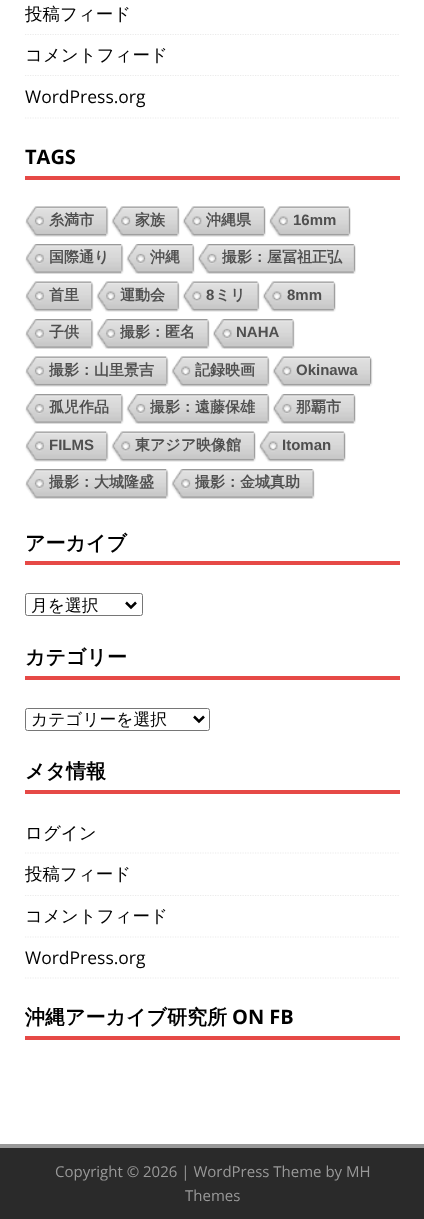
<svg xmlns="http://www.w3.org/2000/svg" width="424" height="1219">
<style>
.a{font:500 17.5px WenQuanYi Zen Hei;fill:#000}
.b{font:17.5px Open Sans;fill:#000}
.c{font:bold 20px Open Sans;fill:#000}
.d{font:bold 15px WenQuanYi Zen Hei;fill:#4f4f4f}
.e{font:bold 15px Liberation Sans;fill:#4f4f4f}
.f{font:bold 20px WenQuanYi Zen Hei;fill:#000}
.g{font:500 16.75px WenQuanYi Zen Hei;fill:#000}
.h{font:15px Open Sans;fill:#999}
</style>
<rect width="100%" height="100%" fill="#fff"/>
<path fill="none" stroke="#ebebeb" stroke-width="1.2" stroke-dasharray="1.25 1.25" d="M25 34.5h375"/>
<path fill="none" stroke="#ebebeb" stroke-width="1.2" stroke-dasharray="1.25 1.25" d="M25 75.5h375"/>
<path fill="none" stroke="#ebebeb" stroke-width="1.2" stroke-dasharray="1.25 1.25" d="M25 118h375"/>
<path fill="#e64946" d="M25 176h375v4H25z"/>
<image href="1.png" x="25" y="206" width="82" height="31"/>
<image href="2.png" x="106" y="207" width="3" height="29"/>
<image href="3.png" x="111" y="206" width="67" height="31"/>
<image href="4.png" x="177" y="207" width="3" height="30"/>
<image href="5.png" x="182" y="206" width="82" height="31"/>
<image href="6.png" x="263" y="207" width="3" height="30"/>
<image href="7.png" x="269" y="206" width="80" height="31"/>
<image href="6.png" x="348" y="207" width="3" height="30"/>
<image href="8.png" x="25" y="244" width="97" height="30"/>
<image href="9.png" x="121" y="244" width="3" height="30"/>
<image href="10.png" x="126" y="244" width="67" height="30"/>
<image href="11.png" x="192" y="244" width="3" height="30"/>
<image href="12.png" x="197" y="244" width="157" height="30"/>
<image href="13.png" x="353" y="244" width="3" height="30"/>
<image href="14.png" x="25" y="281" width="67" height="31"/>
<image href="15.png" x="91" y="282" width="3" height="29"/>
<image href="16.png" x="96" y="281" width="82" height="31"/>
<image href="17.png" x="177" y="282" width="3" height="29"/>
<image href="18.png" x="182" y="281" width="76" height="31"/>
<image href="17.png" x="257" y="282" width="3" height="29"/>
<image href="19.png" x="262" y="281" width="72" height="31"/>
<image href="20.png" x="333" y="282" width="3" height="30"/>
<image href="21.png" x="25" y="319" width="67" height="30"/>
<image href="9.png" x="91" y="319" width="3" height="30"/>
<image href="22.png" x="96" y="319" width="112" height="30"/>
<image href="11.png" x="207" y="319" width="3" height="30"/>
<image href="23.png" x="213" y="319" width="80" height="30"/>
<image href="11.png" x="292" y="319" width="3" height="30"/>
<image href="24.png" x="25" y="356" width="142" height="31"/>
<image href="15.png" x="166" y="357" width="3" height="29"/>
<image href="25.png" x="171" y="356" width="97" height="31"/>
<image href="17.png" x="267" y="357" width="3" height="29"/>
<image href="26.png" x="272" y="356" width="98" height="31"/>
<image href="27.png" x="370" y="357" width="3" height="30"/>
<image href="28.png" x="25" y="394" width="97" height="30"/>
<image href="9.png" x="121" y="394" width="3" height="30"/>
<image href="29.png" x="126" y="394" width="142" height="30"/>
<image href="11.png" x="267" y="394" width="3" height="30"/>
<image href="30.png" x="273" y="394" width="81" height="30"/>
<image href="13.png" x="353" y="394" width="3" height="30"/>
<image href="31.png" x="25" y="431" width="82" height="31"/>
<image href="15.png" x="106" y="432" width="3" height="29"/>
<image href="32.png" x="111" y="431" width="143" height="31"/>
<image href="20.png" x="253" y="432" width="3" height="30"/>
<image href="33.png" x="259" y="431" width="85" height="31"/>
<image href="20.png" x="343" y="432" width="3" height="30"/>
<image href="34.png" x="25" y="469" width="142" height="30"/>
<image href="9.png" x="166" y="469" width="3" height="30"/>
<image href="35.png" x="171" y="469" width="142" height="30"/>
<image href="11.png" x="312" y="469" width="3" height="30"/>
<path fill="#e64946" d="M25 561h375v4H25z"/>
<rect fill="none" stroke="#767676" x="25.5" y="593.5" width="117" height="22" rx="2"/>
<path fill="none" stroke="#000" stroke-width="2.5" d="M126 602.5l5 5l5-5"/>
<path fill="#e64946" d="M25 676h375v4H25z"/>
<rect fill="none" stroke="#767676" x="25.5" y="708.5" width="184" height="22" rx="2"/>
<path fill="none" stroke="#000" stroke-width="2.5" d="M194 716.5l5 5l5-5"/>
<path fill="#e64946" d="M25 790h375v4H25z"/>
<path fill="none" stroke="#ebebeb" stroke-width="1.2" stroke-dasharray="1.25 1.25" d="M25 853h375"/>
<path fill="none" stroke="#ebebeb" stroke-width="1.2" stroke-dasharray="1.25 1.25" d="M25 895.5h375"/>
<path fill="none" stroke="#ebebeb" stroke-width="1.2" stroke-dasharray="1.25 1.25" d="M25 937h375"/>
<path fill="none" stroke="#ebebeb" stroke-width="1.2" stroke-dasharray="1.25 1.25" d="M25 978h375"/>
<path fill="#e64946" d="M25 1036h375v4H25z"/>
<path fill="#2a2a2a" d="M0 1148h424v71H0z"/>
<path fill="#999" d="M0 1144h424v4H0z"/>
<text class="a" x="25" y="20">投稿フィード</text>
<text class="a" x="25" y="61">コメントフィード</text>
<text class="b" x="25" y="103">WordPress.org</text>
<text class="c" x="25" y="164">TAGS</text>
<text class="d" x="49" y="225">糸満市</text>
<text class="d" x="135" y="225">家族</text>
<text class="d" x="206" y="225">沖縄県</text>
<text class="e" x="293" y="225">16mm</text>
<text class="d" x="49" y="262">国際通り</text>
<text class="d" x="150" y="262">沖縄</text>
<text class="d" x="222" y="262">撮影：屋冨祖正弘</text>
<text class="d" x="49" y="300">首里</text>
<text class="d" x="120" y="300">運動会</text>
<text class="e" x="206" y="300">8</text>
<text class="d" x="215" y="300">ミリ</text>
<text class="e" x="287" y="300">8mm</text>
<text class="d" x="49" y="337">子供</text>
<text class="d" x="120" y="337">撮影：匿名</text>
<text class="e" x="236" y="337">NAHA</text>
<text class="d" x="49" y="375">撮影：山里景吉</text>
<text class="d" x="195" y="375">記録映画</text>
<text class="e" x="296" y="375">Okinawa</text>
<text class="d" x="49" y="412">孤児作品</text>
<text class="d" x="150" y="412">撮影：遠藤保雄</text>
<text class="d" x="296" y="412">那覇市</text>
<text class="e" x="49" y="450">FILMS</text>
<text class="d" x="135" y="450">東アジア映像館</text>
<text class="e" x="282" y="450">Itoman</text>
<text class="d" x="49" y="487">撮影：大城隆盛</text>
<text class="d" x="195" y="487">撮影：金城真助</text>
<text class="f" x="25" y="550">アーカイブ</text>
<text class="g" x="31" y="611">月を選択</text>
<text class="f" x="25" y="664">カテゴリー</text>
<text class="g" x="31" y="725">カテゴリーを選択</text>
<text class="f" x="25" y="778">メタ情報</text>
<text class="a" x="25" y="839">ログイン</text>
<text class="a" x="25" y="880">投稿フィード</text>
<text class="a" x="25" y="922">コメントフィード</text>
<text class="b" x="25" y="964">WordPress.org</text>
<text class="f" x="25" y="1024">沖縄アーカイブ研究所</text>
<text class="c" x="232" y="1024">ON FB</text>
<text class="h" x="55" y="1177">Copyright © 2026 | WordPress Theme by MH</text>
<text class="h" x="185" y="1201">Themes</text>
</svg>
